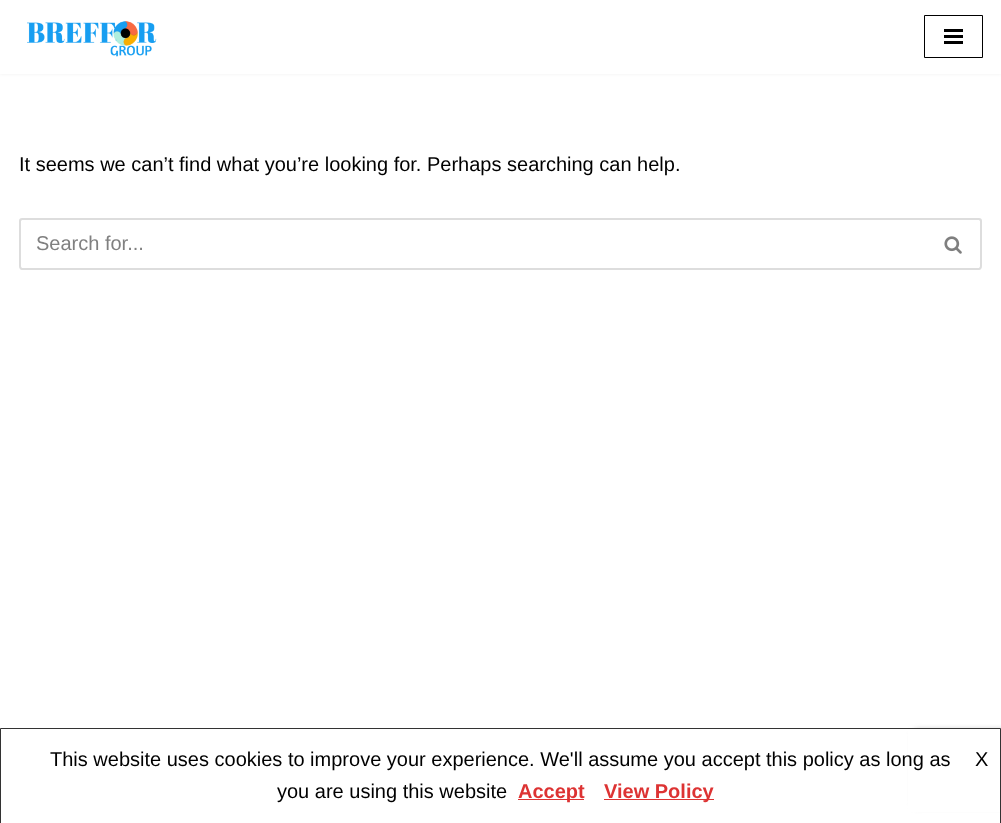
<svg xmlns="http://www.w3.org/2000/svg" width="1001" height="823">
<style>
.a{font:20px Liberation Sans;fill:#000}
.b{font:20px Liberation Sans;fill:#808080}
.c{font:bold 20px Liberation Sans;fill:#d33}
</style>
<rect width="100%" height="100%" fill="#fff"/>
<path fill="#0000001a" filter="blur(2px)" d="M0 -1h1001v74H0z"/>
<path fill="#fff" d="M0 0h1001v74H0z"/>
<image href="1.png" x="27" y="21" width="130" height="36"/>
<path fill="none" stroke="#000" d="M924.5 15.5h58v42H924.5z"/>
<path fill="#000" d="M944 29h19v3H944z"/>
<path fill="#000" d="M944 35h19v3H944z"/>
<path fill="#000" d="M944 41h19v3H944z"/>
<path fill="#ddd" fill-rule="evenodd" d="M22 218h904v52h-904c-2 0-3-2-3-4v-45c0-2 1-3 3-3zm0 2h904v48h-904c0 0-1-1-1-2v-45c0 0 1-1 1-1z"/>
<path fill="#ddd" fill-rule="evenodd" d="M926 218h53c2 0 3 1 3 3v45c0 2-1 4-3 4h-53zm0 2h53c0 0 1 1 1 1v45c0 1-1 2-1 2h-53z"/>
<image href="2.png" x="944" y="236" width="18" height="18"/>
<rect fill="#808080" filter="blur(3px)" x="914" y="731" width="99" height="75" rx="2.5"/>
<path fill="#fff" d="M908 729h92v83H908z"/>
<path fill="none" stroke="#333" d="M0.5 728.5h1000v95H0.5z"/>
<path fill="#d33" d="M518 799h66v1H518z"/>
<path fill="#d33" d="M604 799h110v1H604z"/>
<text class="a" x="19" y="171">It seems we can’t find what you’re looking for. Perhaps searching can help.</text>
<text class="b" x="36" y="250">Search for...</text>
<text class="a" x="50" y="766">This website uses cookies to improve your experience. We'll assume you accept this policy as long as</text>
<text class="a" x="975" y="766">X</text>
<text class="a" x="277" y="798">you are using this website</text>
<text class="c" x="518" y="798">Accept</text>
<text class="c" x="604" y="798">View Policy</text>
</svg>
